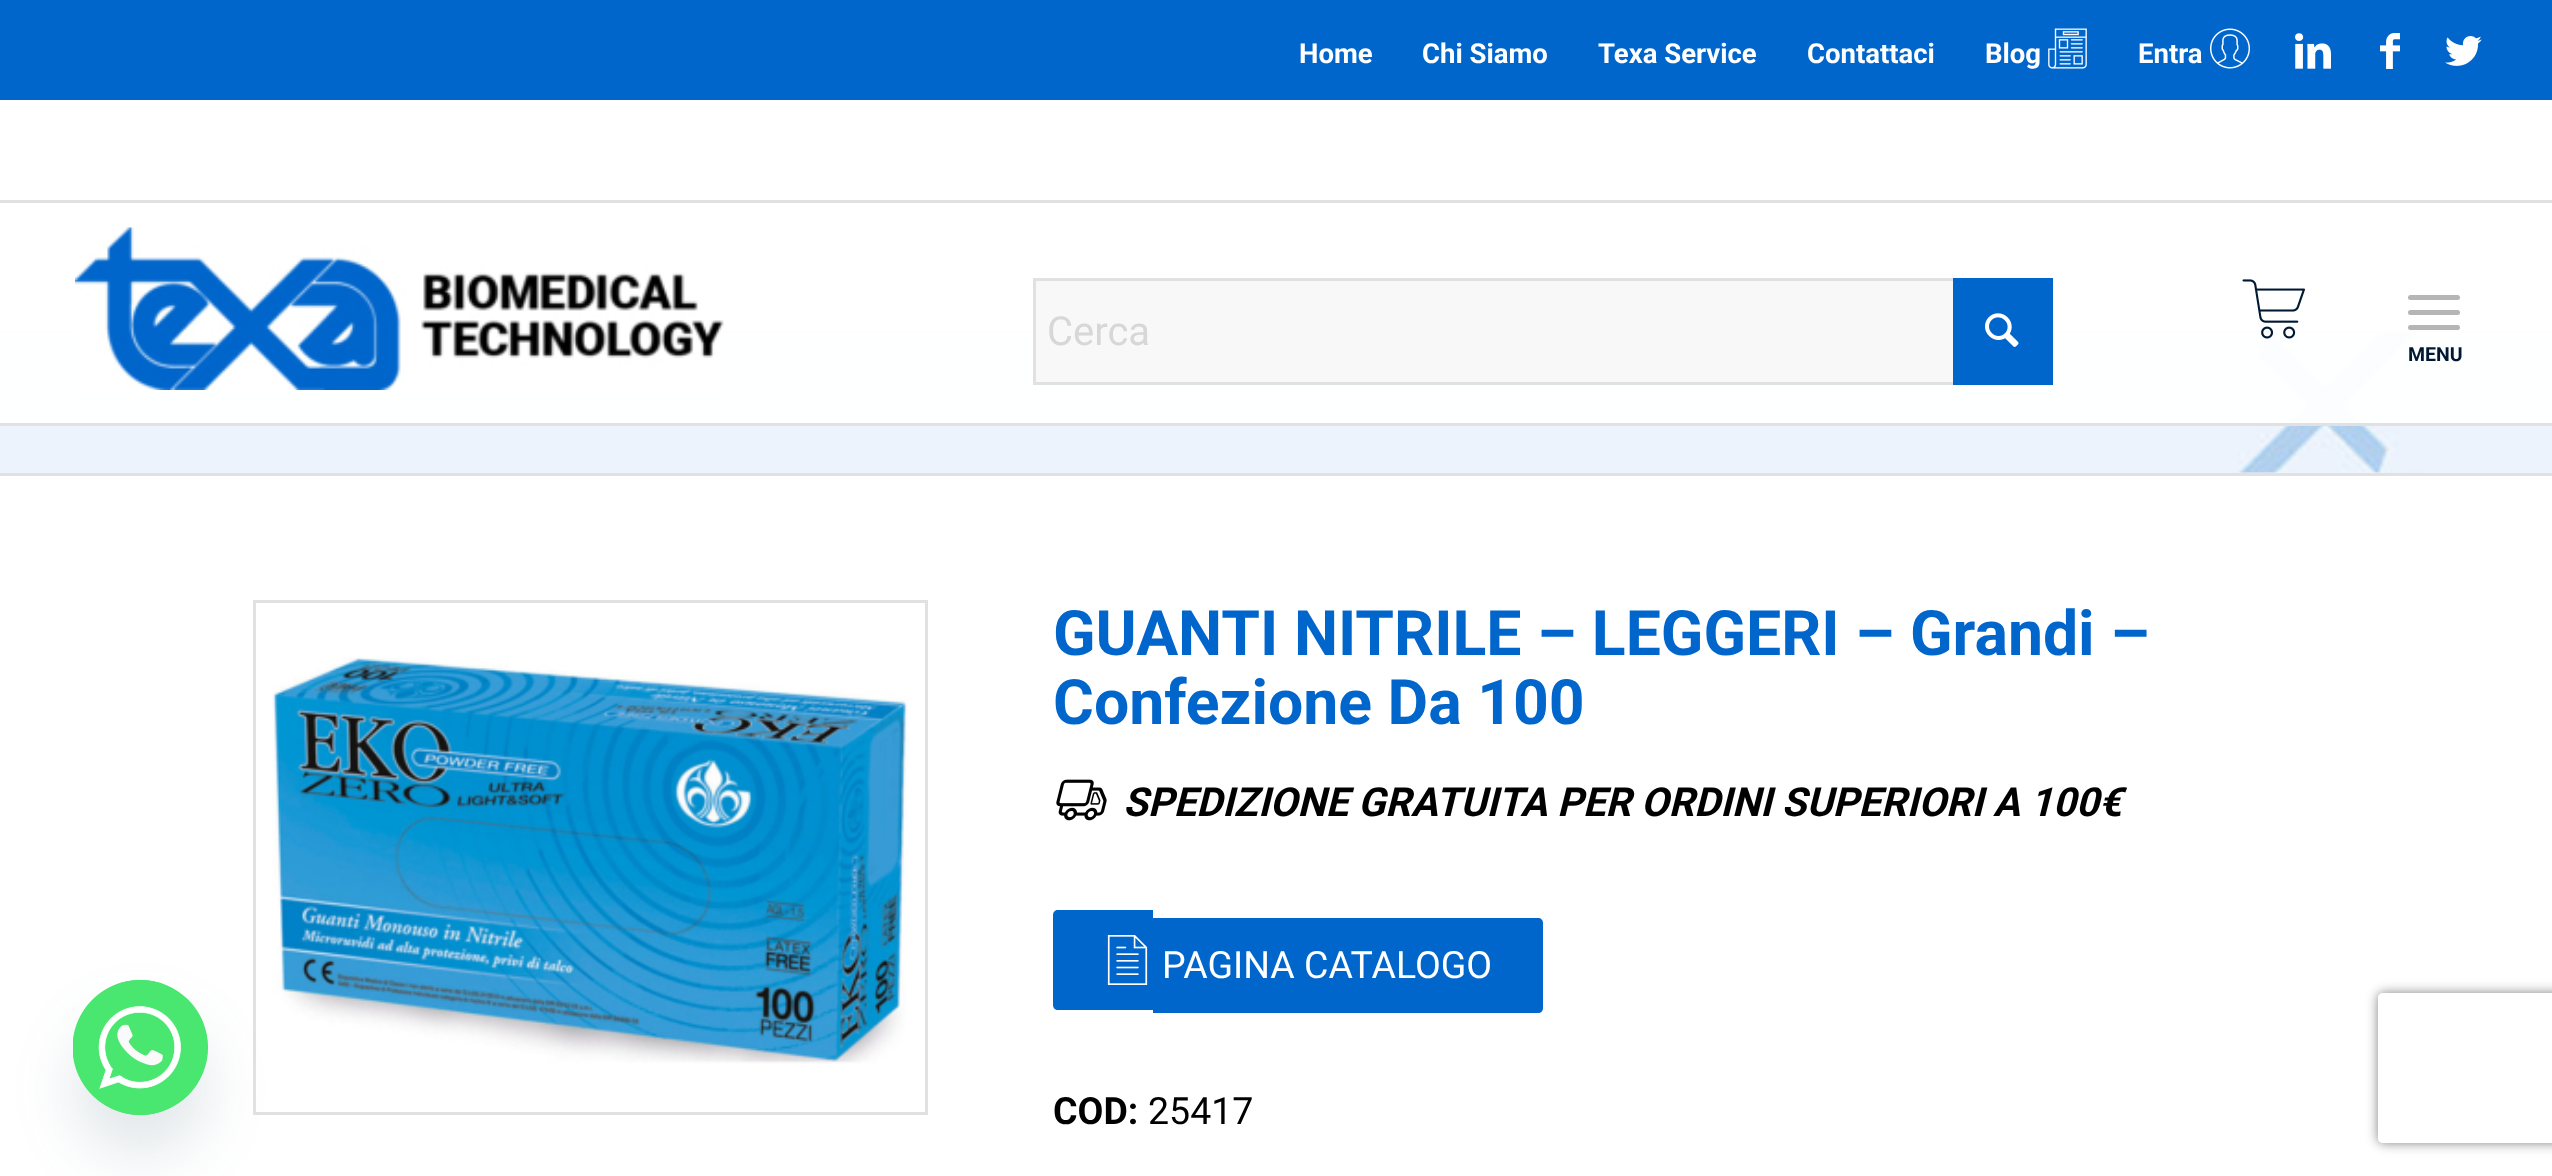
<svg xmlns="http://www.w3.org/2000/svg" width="2552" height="1176">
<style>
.a{font:bold 27.5px Roboto;fill:#fff}
.b{font:40px Roboto;fill:#d7d7d7}
.c{font:bold 19.5px Roboto;fill:#001933}
.d{font:bold 62.5px Roboto;fill:#06c}
.e{font:italic bold 40px Roboto;fill:#000}
.f{font:37.5px Roboto;fill:#fff}
.g{font:bold 37.5px Roboto;fill:#000}
.h{font:37.5px Roboto;fill:#000}
</style>
<defs>
<clipPath id="clip1"><path d="M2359 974h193v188h-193zm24 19h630c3 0 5 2 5 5v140c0 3-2 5-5 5h-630c-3 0-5-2-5-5v-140c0-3 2-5 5-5z" clip-rule="evenodd"/></clipPath>
</defs>
<rect width="100%" height="100%" fill="#fff"/>
<path fill="none" stroke="#e1e1e1" stroke-width="3" d="M254.5 601.5h672v512H254.5z"/>
<image href="11.png" x="272" y="657" width="636" height="407"/>
<rect fill="#49687e29" filter="blur(30px)" x="73" y="1020" width="135" height="135" rx="67.5"/>
<circle fill="#49e670" cx="140.5" cy="1047.5" r="67.5"/>
<image href="1.png" x="73" y="980" width="135" height="135"/>
<path fill="#06c" d="M0 0h2552v100H0z"/>
<image href="2.png" x="2048" y="28" width="39" height="41"/>
<image href="3.png" x="2210" y="28" width="40" height="41"/>
<image href="4.png" x="2295" y="33" width="36" height="36"/>
<image href="5.png" x="2380" y="33" width="20" height="36"/>
<image href="6.png" x="2445" y="36" width="37" height="30"/>
<path fill="#e1e1e1" d="M0 200h2552v3H0z"/>
<path fill="#ecf3fd" d="M0 333h2552v140H0z"/>
<path fill="#e1e1e1" d="M0 330h2552v3H0z"/>
<image href="10.png" x="2237" y="332" width="188" height="141"/>
<path fill="#e1e1e1" d="M0 423h2552v3H0z"/>
<path fill="#fffffff2" d="M0 330h2552v93H0z"/>
<path fill="#f8f8f8" d="M1036 281h917v101H1036z"/>
<path fill="none" stroke="#e1e1e1" stroke-width="3" d="M1034.5 279.5h1017v104H1034.5z"/>
<path fill="#06c" d="M1953 278h100v107H1953z"/>
<image href="7.png" x="1985" y="313" width="34" height="34"/>
<image href="8.png" x="75" y="227" width="649" height="163"/>
<image href="9.png" x="2242" y="279" width="63" height="60"/>
<rect fill="#b5b5b5" x="2408" y="310" width="52" height="5" rx="2.5"/>
<rect fill="#b5b5b5" x="2408" y="295" width="52" height="5" rx="2.5"/>
<rect fill="#b5b5b5" x="2408" y="325" width="52" height="5" rx="2.5"/>
<path fill="#e1e1e1" d="M0 473h2552v3H0z"/>
<image href="12.png" x="1056" y="779" width="51" height="42"/>
<path fill="#06c" d="M1058 910h95v100h-95c-3 0-5-2-5-5v-90c0-3 2-5 5-5z"/>
<image href="13.png" x="1107" y="935" width="41" height="50"/>
<path fill="#06c" d="M1153 918h385c3 0 5 2 5 5v85c0 3-2 5-5 5h-385z"/>
<g clip-path="url(#clip1)">
<rect fill="#808080" filter="blur(6px)" x="2378" y="993" width="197" height="150" rx="5"/>
</g>
<text class="a" x="1299" y="63">Home</text>
<text class="a" x="1422" y="63">Chi Siamo</text>
<text class="a" x="1598" y="63">Texa Service</text>
<text class="a" x="1807" y="63">Contattaci</text>
<text class="a" x="1985" y="63">Blog</text>
<text class="a" x="2138" y="63">Entra</text>
<text class="b" x="1047" y="345">Cerca</text>
<text class="c" x="2408" y="361">MENU</text>
<text class="d" x="1053" y="655">GUANTI NITRILE – LEGGERI – Grandi –</text>
<text class="d" x="1053" y="724">Confezione Da 100</text>
<text class="e" x="1123" y="816">SPEDIZIONE GRATUITA PER ORDINI SUPERIORI A 100€</text>
<text class="f" x="1162" y="978">PAGINA CATALOGO</text>
<text class="g" x="1053" y="1124">COD:</text>
<text class="h" x="1148" y="1124">25417</text>
</svg>
